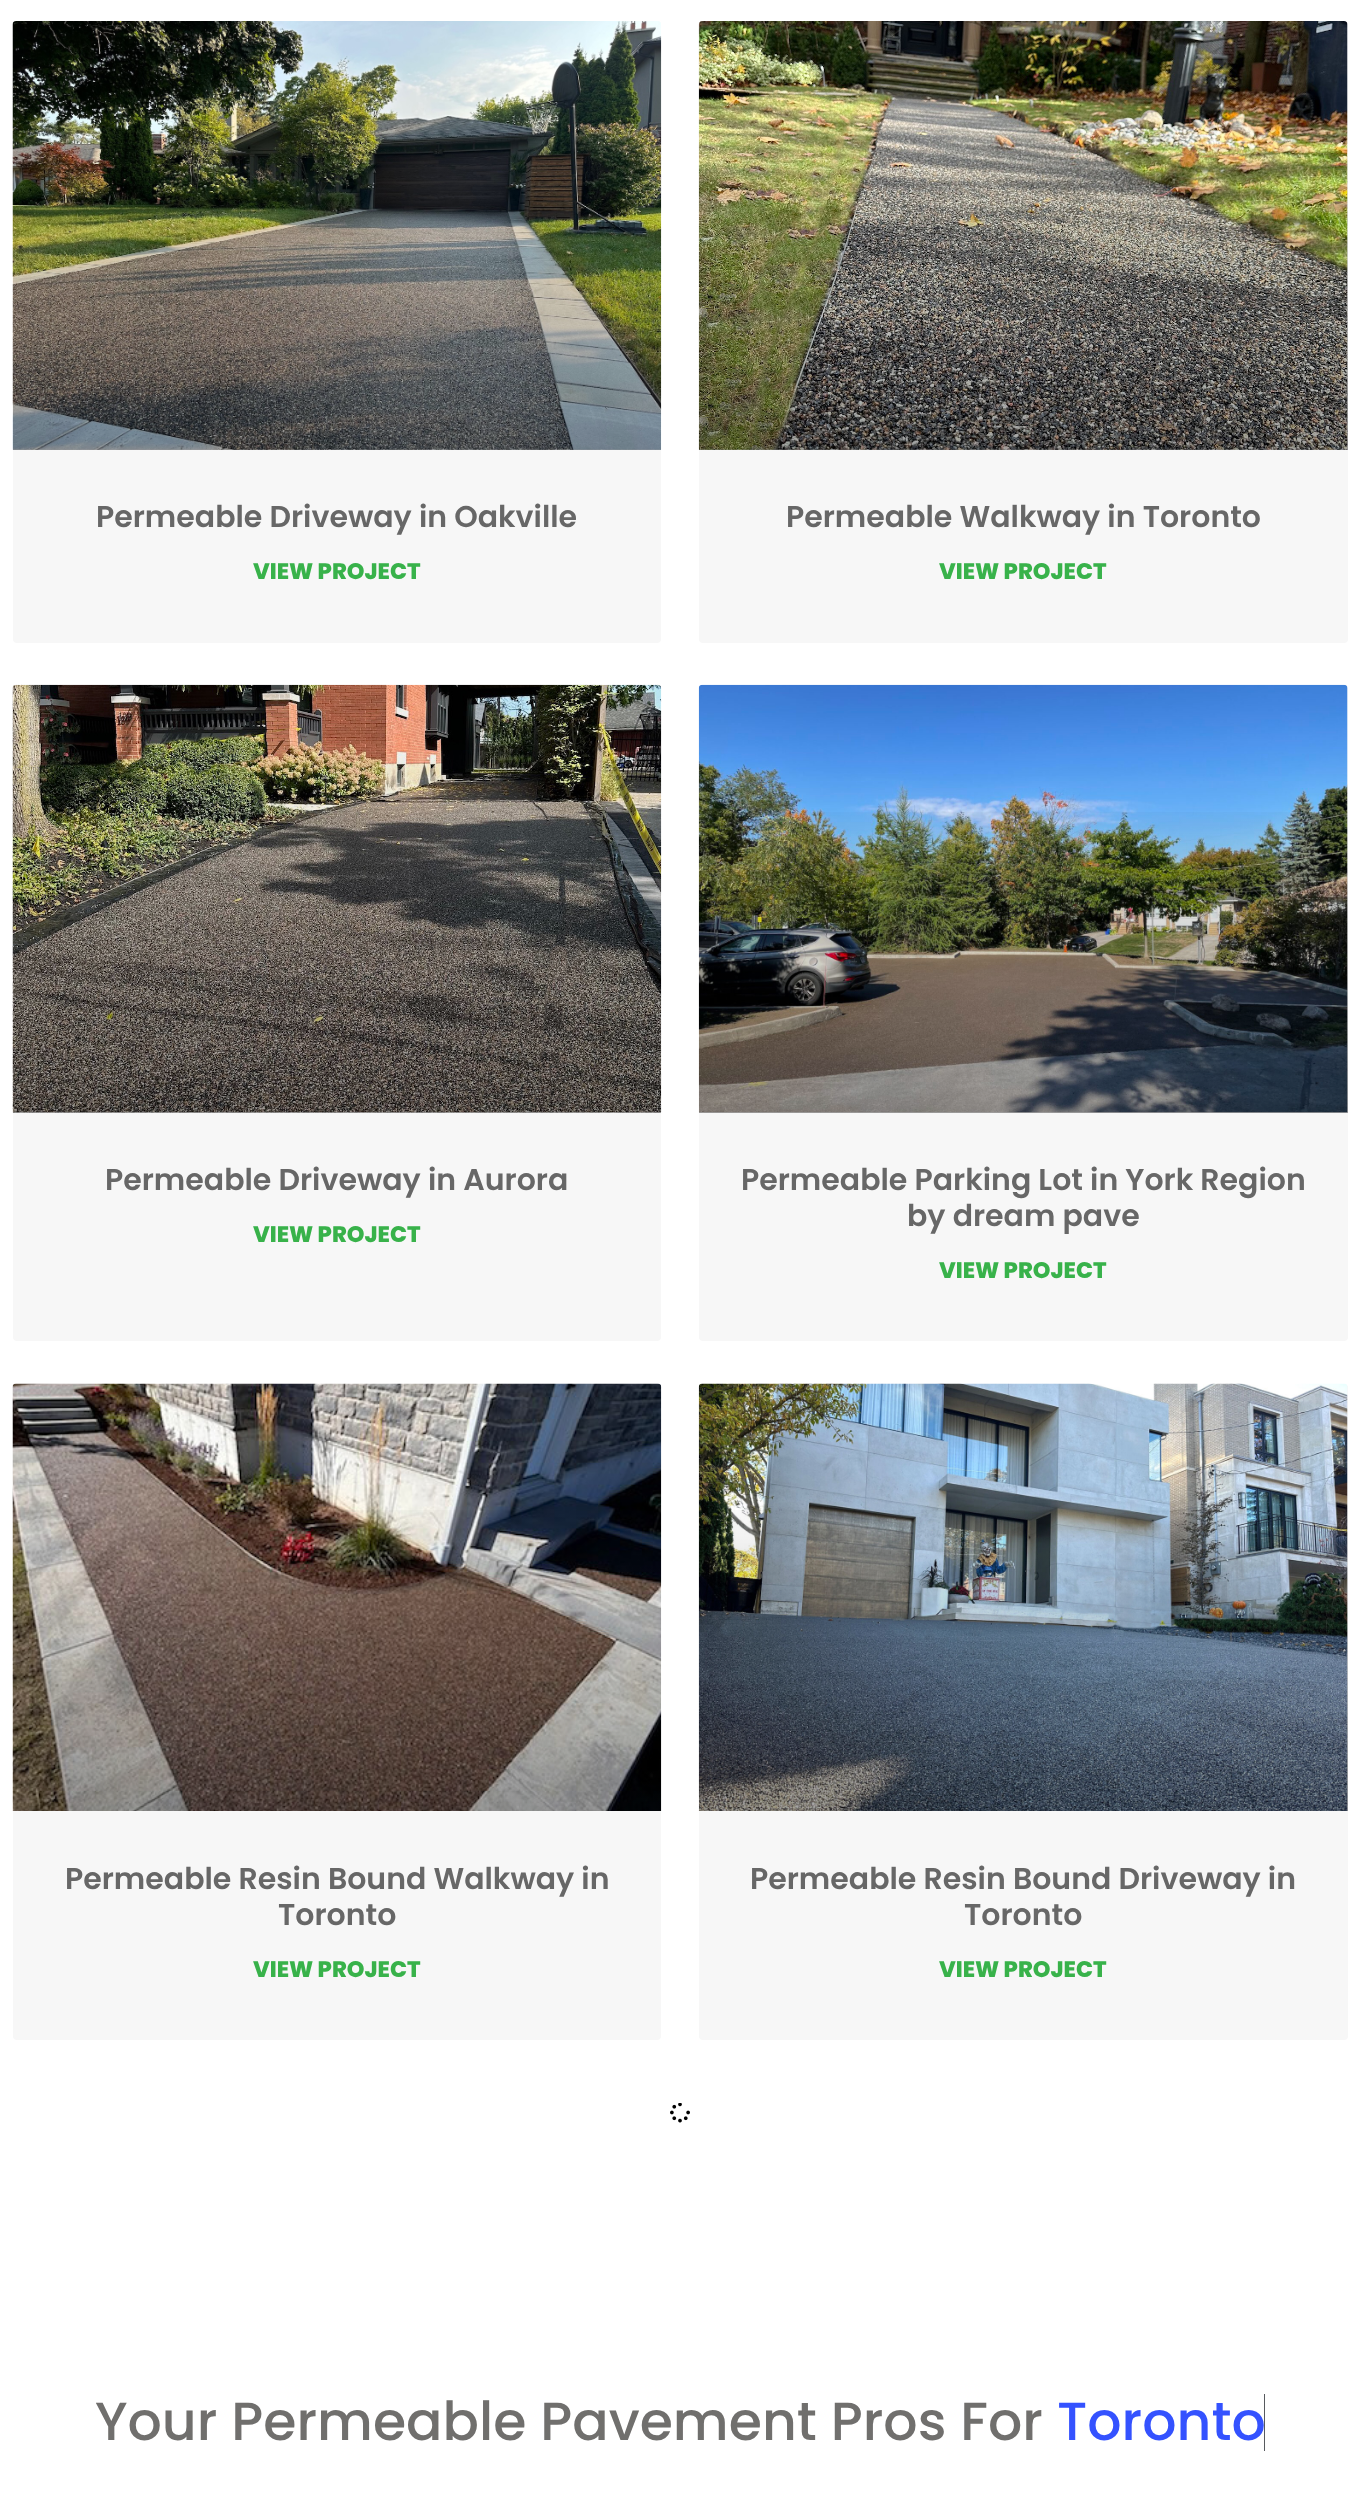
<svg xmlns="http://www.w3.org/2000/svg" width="1359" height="2494">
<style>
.a{font:600 30px Poppins;fill:#676767}
.b{font:800 22.5px Poppins;fill:#38b24a}
.c{font:500 53.75px Poppins;fill:#706f6d}
.d{font:500 53.75px Poppins;fill:#3452ff}
</style>
<defs>
<linearGradient id="g1" gradientUnits="userSpaceOnUse" x1="337" y1="450" x2="337" y2="21"><stop offset="0" stop-color="#000" stop-opacity="0.35"/><stop offset="0.75" stop-color="#000" stop-opacity="0"/></linearGradient>
<linearGradient id="g2" gradientUnits="userSpaceOnUse" x1="1023" y1="450" x2="1023" y2="21"><stop offset="0" stop-color="#000" stop-opacity="0.35"/><stop offset="0.75" stop-color="#000" stop-opacity="0"/></linearGradient>
<linearGradient id="g3" gradientUnits="userSpaceOnUse" x1="337" y1="1113" x2="337" y2="685"><stop offset="0" stop-color="#000" stop-opacity="0.35"/><stop offset="0.75" stop-color="#000" stop-opacity="0"/></linearGradient>
<linearGradient id="g4" gradientUnits="userSpaceOnUse" x1="1023" y1="1113" x2="1023" y2="685"><stop offset="0" stop-color="#000" stop-opacity="0.35"/><stop offset="0.75" stop-color="#000" stop-opacity="0"/></linearGradient>
<linearGradient id="g5" gradientUnits="userSpaceOnUse" x1="337" y1="1811" x2="337" y2="1384"><stop offset="0" stop-color="#000" stop-opacity="0.35"/><stop offset="0.75" stop-color="#000" stop-opacity="0"/></linearGradient>
<linearGradient id="g6" gradientUnits="userSpaceOnUse" x1="1023" y1="1811" x2="1023" y2="1384"><stop offset="0" stop-color="#000" stop-opacity="0.35"/><stop offset="0.75" stop-color="#000" stop-opacity="0"/></linearGradient>
</defs>
<rect width="100%" height="100%" fill="#fff"/>
<rect fill="#f7f7f7" x="13" y="21" width="648" height="622" rx="4"/>
<image href="1.png" x="12" y="21" width="650" height="429"/>
<path fill="url(#g1)" d="M13 148h648v302H13z"/>
<rect fill="#f7f7f7" x="699" y="21" width="649" height="622" rx="4"/>
<image href="2.png" x="698" y="21" width="650" height="429"/>
<path fill="url(#g2)" d="M699 148h649v302H699z"/>
<rect fill="#f7f7f7" x="13" y="685" width="648" height="656" rx="4"/>
<image href="3.png" x="12" y="684" width="650" height="429"/>
<path fill="url(#g3)" d="M13 812h648v301H13z"/>
<rect fill="#f7f7f7" x="699" y="685" width="649" height="656" rx="4"/>
<image href="4.png" x="698" y="684" width="650" height="429"/>
<path fill="url(#g4)" d="M699 812h649v301H699z"/>
<rect fill="#f7f7f7" x="13" y="1384" width="648" height="656" rx="4"/>
<image href="5.png" x="12" y="1383" width="650" height="428"/>
<path fill="url(#g5)" d="M13 1510h648v301H13z"/>
<rect fill="#f7f7f7" x="699" y="1384" width="649" height="656" rx="4"/>
<image href="6.png" x="698" y="1383" width="650" height="428"/>
<path fill="url(#g6)" d="M699 1510h649v301H699z"/>
<image href="7.png" x="670" y="2103" width="20" height="20"/>
<path fill="#575a5f" d="M1264 2394h1v57H1264z"/>
<text class="a" x="96" y="527">Permeable Driveway in Oakville</text>
<text class="b" x="253" y="579">VIEW PROJECT</text>
<text class="a" x="786" y="527">Permeable Walkway in Toronto</text>
<text class="b" x="939" y="579">VIEW PROJECT</text>
<text class="a" x="105" y="1190">Permeable Driveway in Aurora</text>
<text class="b" x="253" y="1242">VIEW PROJECT</text>
<text class="a" x="741" y="1190">Permeable Parking Lot in York Region</text>
<text class="a" x="907" y="1226">by dream pave</text>
<text class="b" x="939" y="1278">VIEW PROJECT</text>
<text class="a" x="65" y="1889">Permeable Resin Bound Walkway in</text>
<text class="a" x="278" y="1925">Toronto</text>
<text class="b" x="253" y="1977">VIEW PROJECT</text>
<text class="a" x="750" y="1889">Permeable Resin Bound Driveway in</text>
<text class="a" x="964" y="1925">Toronto</text>
<text class="b" x="939" y="1977">VIEW PROJECT</text>
<text class="c" x="95" y="2440">Your Permeable Pavement Pros For</text>
<text class="d" x="1057" y="2440">Toronto</text>
</svg>
